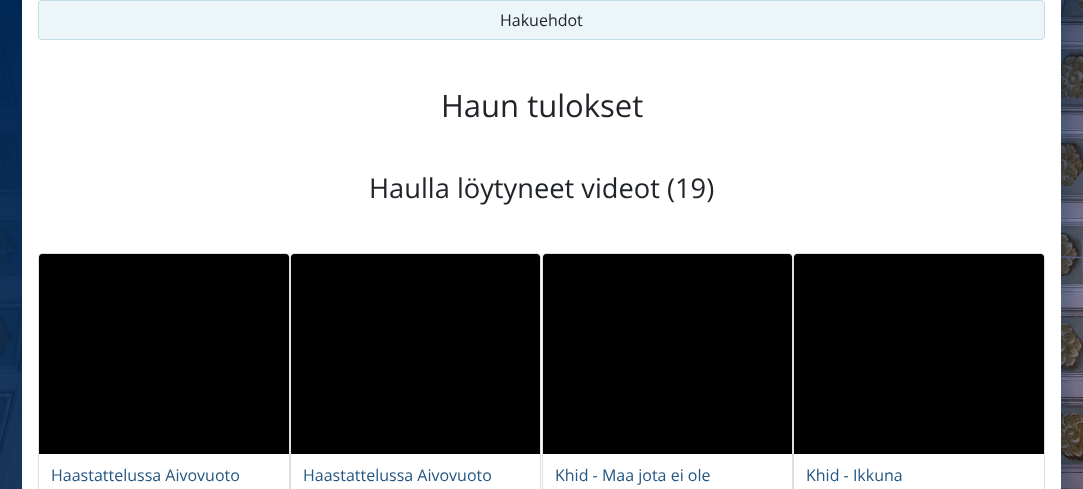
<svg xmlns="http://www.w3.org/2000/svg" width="1083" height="489">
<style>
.a{font:16px Open Sans;fill:#212529}
.b{font:31px Open Sans;fill:#212529}
.c{font:27.25px Open Sans;fill:#212529}
.d{font:16px Open Sans;fill:#255783}
</style>
<rect width="100%" height="100%" fill="#fff"/>
<image href="1.png" x="0" y="0" width="1083" height="489"/>
<rect fill="#00285533" filter="blur(5px)" x="12" y="-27" width="1059" height="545" rx="14"/>
<path fill="#fff" d="M22 0h1039v489H22z"/>
<rect fill="#ecf5f7" stroke="#c0dde6" x="38.5" y="0.5" width="1006" height="39" rx="3.5"/>
<rect fill="none" stroke="#dfdfdf" x="38.5" y="253.5" width="251" height="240" rx="3.5"/>
<path fill="#000" d="M42 254h244c1.5 0 3 1.5 3 3v197h-250v-197c0-1.5 1.5-3 3-3z"/>
<rect fill="none" stroke="#dfdfdf" x="290.5" y="253.5" width="250" height="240" rx="3.5"/>
<path fill="#000" d="M294 254h243c1.5 0 3 1.5 3 3v197h-249v-197c0-1.5 1.5-3 3-3z"/>
<rect fill="none" stroke="#dfdfdf" x="542.5" y="253.5" width="250" height="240" rx="3.5"/>
<path fill="#000" d="M546 254h243c1.5 0 3 1.5 3 3v197h-249v-197c0-1.5 1.5-3 3-3z"/>
<rect fill="none" stroke="#dfdfdf" x="793.5" y="253.5" width="251" height="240" rx="3.5"/>
<path fill="#000" d="M797 254h244c1.5 0 3 1.5 3 3v197h-250v-197c0-1.5 1.5-3 3-3z"/>
<text class="a" x="500" y="26">Hakuehdot</text>
<text class="b" x="441" y="117">Haun tulokset</text>
<text class="c" x="369" y="198">Haulla löytyneet videot (19)</text>
<text class="d" x="51" y="481">Haastattelussa Aivovuoto</text>
<text class="d" x="303" y="481">Haastattelussa Aivovuoto</text>
<text class="d" x="555" y="481">Khid - Maa jota ei ole</text>
<text class="d" x="806" y="481">Khid - Ikkuna</text>
</svg>
